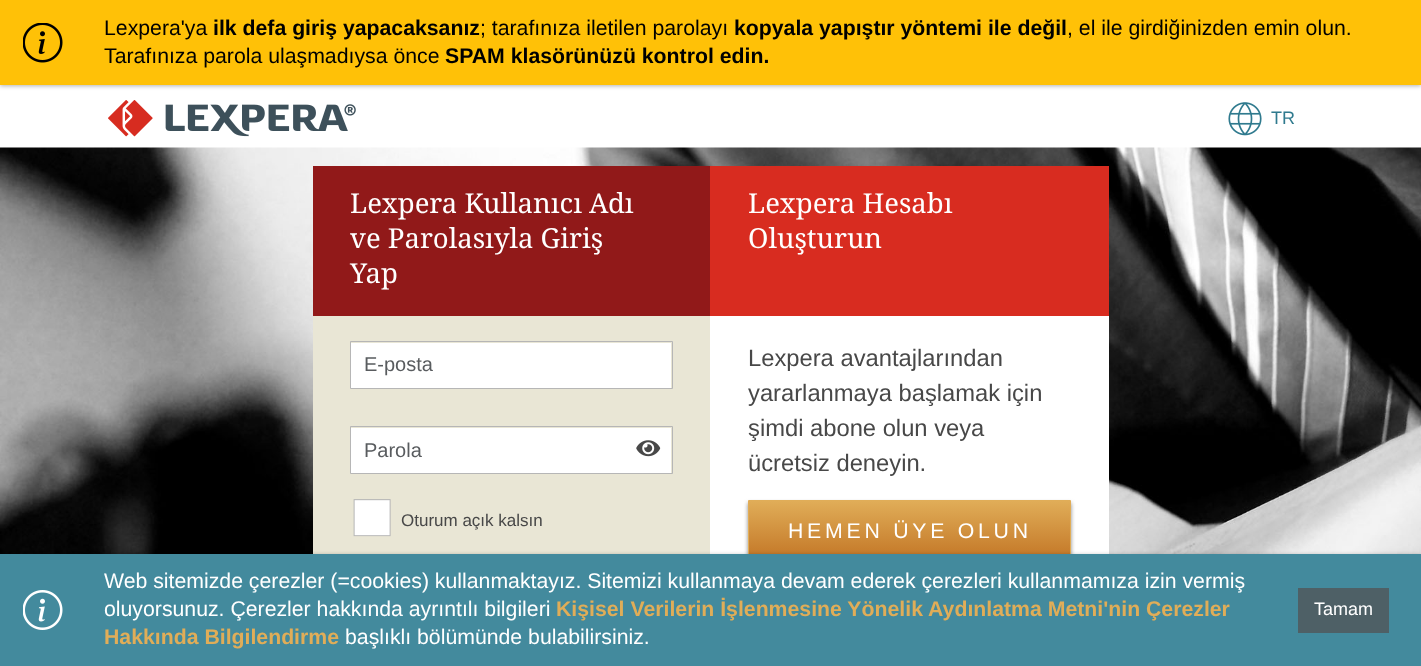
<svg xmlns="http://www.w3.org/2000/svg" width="1421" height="666">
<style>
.a{font:21.25px Liberation Sans;fill:#000}
.b{font:bold 21.25px Liberation Sans;fill:#000}
.c{font:18px Liberation Sans;fill:#2f7a8e}
.d{font:27.5px Noto Serif;fill:#fff}
.e{font:20px Liberation Sans;fill:#595c5f}
.f{font:17px Liberation Sans;fill:#484848}
.g{font:23.75px Liberation Sans;fill:#484848}
.h{font:21.25px Liberation Sans;letter-spacing:3.75px;fill:#fff}
.i{font:21.25px Liberation Sans;fill:#fff}
.j{font:bold 21.25px Liberation Sans;fill:#e0ad58}
.k{font:18px Liberation Sans;fill:#fff}
</style>
<defs>
<linearGradient id="g1" gradientUnits="userSpaceOnUse" x1="909" y1="501" x2="909" y2="561"><stop offset="0" stop-color="#e0ad58"/><stop offset="1" stop-color="#c27525"/></linearGradient>
</defs>
<rect width="100%" height="100%" fill="#fff"/>
<path fill="#0000004d" filter="blur(2px)" d="M0 1h1421v85H0z"/>
<path fill="#ffc107" d="M0 0h1421v85H0z"/>
<image href="1.png" x="23" y="23" width="40" height="40"/>
<image href="2.png" x="108" y="100" width="248" height="37"/>
<image href="3.png" x="1228" y="102" width="34" height="34"/>
<image href="4.png" x="0" y="147" width="1421" height="407"/>
<path fill="#e9e6d5" d="M313 316h397v238H313z"/>
<path fill="#911919" d="M313 166h397v150H313z"/>
<path fill="#fff" d="M351 343h320v45H351z"/>
<path fill="none" stroke="#b6b6b6" d="M350.5 341.5h322v47H350.5z"/>
<path fill="#fff" d="M351 428h320v45H351z"/>
<path fill="none" stroke="#b6b6b6" d="M350.5 426.5h322v47H350.5z"/>
<image href="5.png" x="636" y="440" width="25" height="17"/>
<image href="6.png" x="353" y="499" width="38" height="38"/>
<path fill="#fff" d="M710 316h399v238H710z"/>
<path fill="#d82c20" d="M710 166h399v150H710z"/>
<path fill="#888" filter="blur(2px)" d="M748 503h323v62H748z"/>
<path fill="url(#g1)" d="M749 501h321v53H749z"/>
<path fill="none" stroke="#e0ad58" d="M748.5 500.5h322v62H748.5z"/>
<path fill="#0000004d" filter="blur(2px)" d="M0 555h1421v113H0z"/>
<path fill="#438a9d" d="M0 554h1421v112H0z"/>
<image href="7.png" x="23" y="590" width="40" height="40"/>
<path fill="#4e6066" d="M1298 588h91v45H1298z"/>
<text class="a" x="104" y="35">Lexpera'ya</text>
<text class="b" x="213" y="35">ilk defa giriş yapacaksanız</text>
<text class="a" x="480" y="35">; tarafınıza iletilen parolayı</text>
<text class="b" x="734" y="35">kopyala yapıştır yöntemi ile değil</text>
<text class="a" x="1067" y="35">, el ile girdiğinizden emin olun.</text>
<text class="a" x="104" y="63">Tarafınıza parola ulaşmadıysa önce</text>
<text class="b" x="445" y="63">SPAM klasörünüzü kontrol edin.</text>
<text class="c" x="1271" y="124">TR</text>
<text class="d" x="350" y="213">Lexpera Kullanıcı Adı</text>
<text class="d" x="350" y="248">ve Parolasıyla Giriş</text>
<text class="d" x="350" y="283">Yap</text>
<text class="e" x="364" y="371">E-posta</text>
<text class="e" x="364" y="457">Parola</text>
<text class="f" x="401" y="526">Oturum açık kalsın</text>
<text class="d" x="748" y="213">Lexpera Hesabı</text>
<text class="d" x="748" y="248">Oluşturun</text>
<text class="g" x="748" y="366">Lexpera avantajlarından</text>
<text class="g" x="748" y="401">yararlanmaya başlamak için</text>
<text class="g" x="748" y="436">şimdi abone olun veya</text>
<text class="g" x="748" y="471">ücretsiz deneyin.</text>
<text class="h" x="788" y="538">HEMEN ÜYE OLUN</text>
<text class="i" x="104" y="588">Web sitemizde çerezler (=cookies) kullanmaktayız. Sitemizi kullanmaya devam ederek çerezleri kullanmamıza izin vermiş</text>
<text class="i" x="104" y="616">oluyorsunuz. Çerezler hakkında ayrıntılı bilgileri</text>
<text class="j" x="556" y="616">Kişisel Verilerin İşlenmesine Yönelik Aydınlatma Metni'nin Çerezler</text>
<text class="j" x="104" y="644">Hakkında Bilgilendirme</text>
<text class="i" x="345" y="644">başlıklı bölümünde bulabilirsiniz.</text>
<text class="k" x="1314" y="615">Tamam</text>
</svg>
